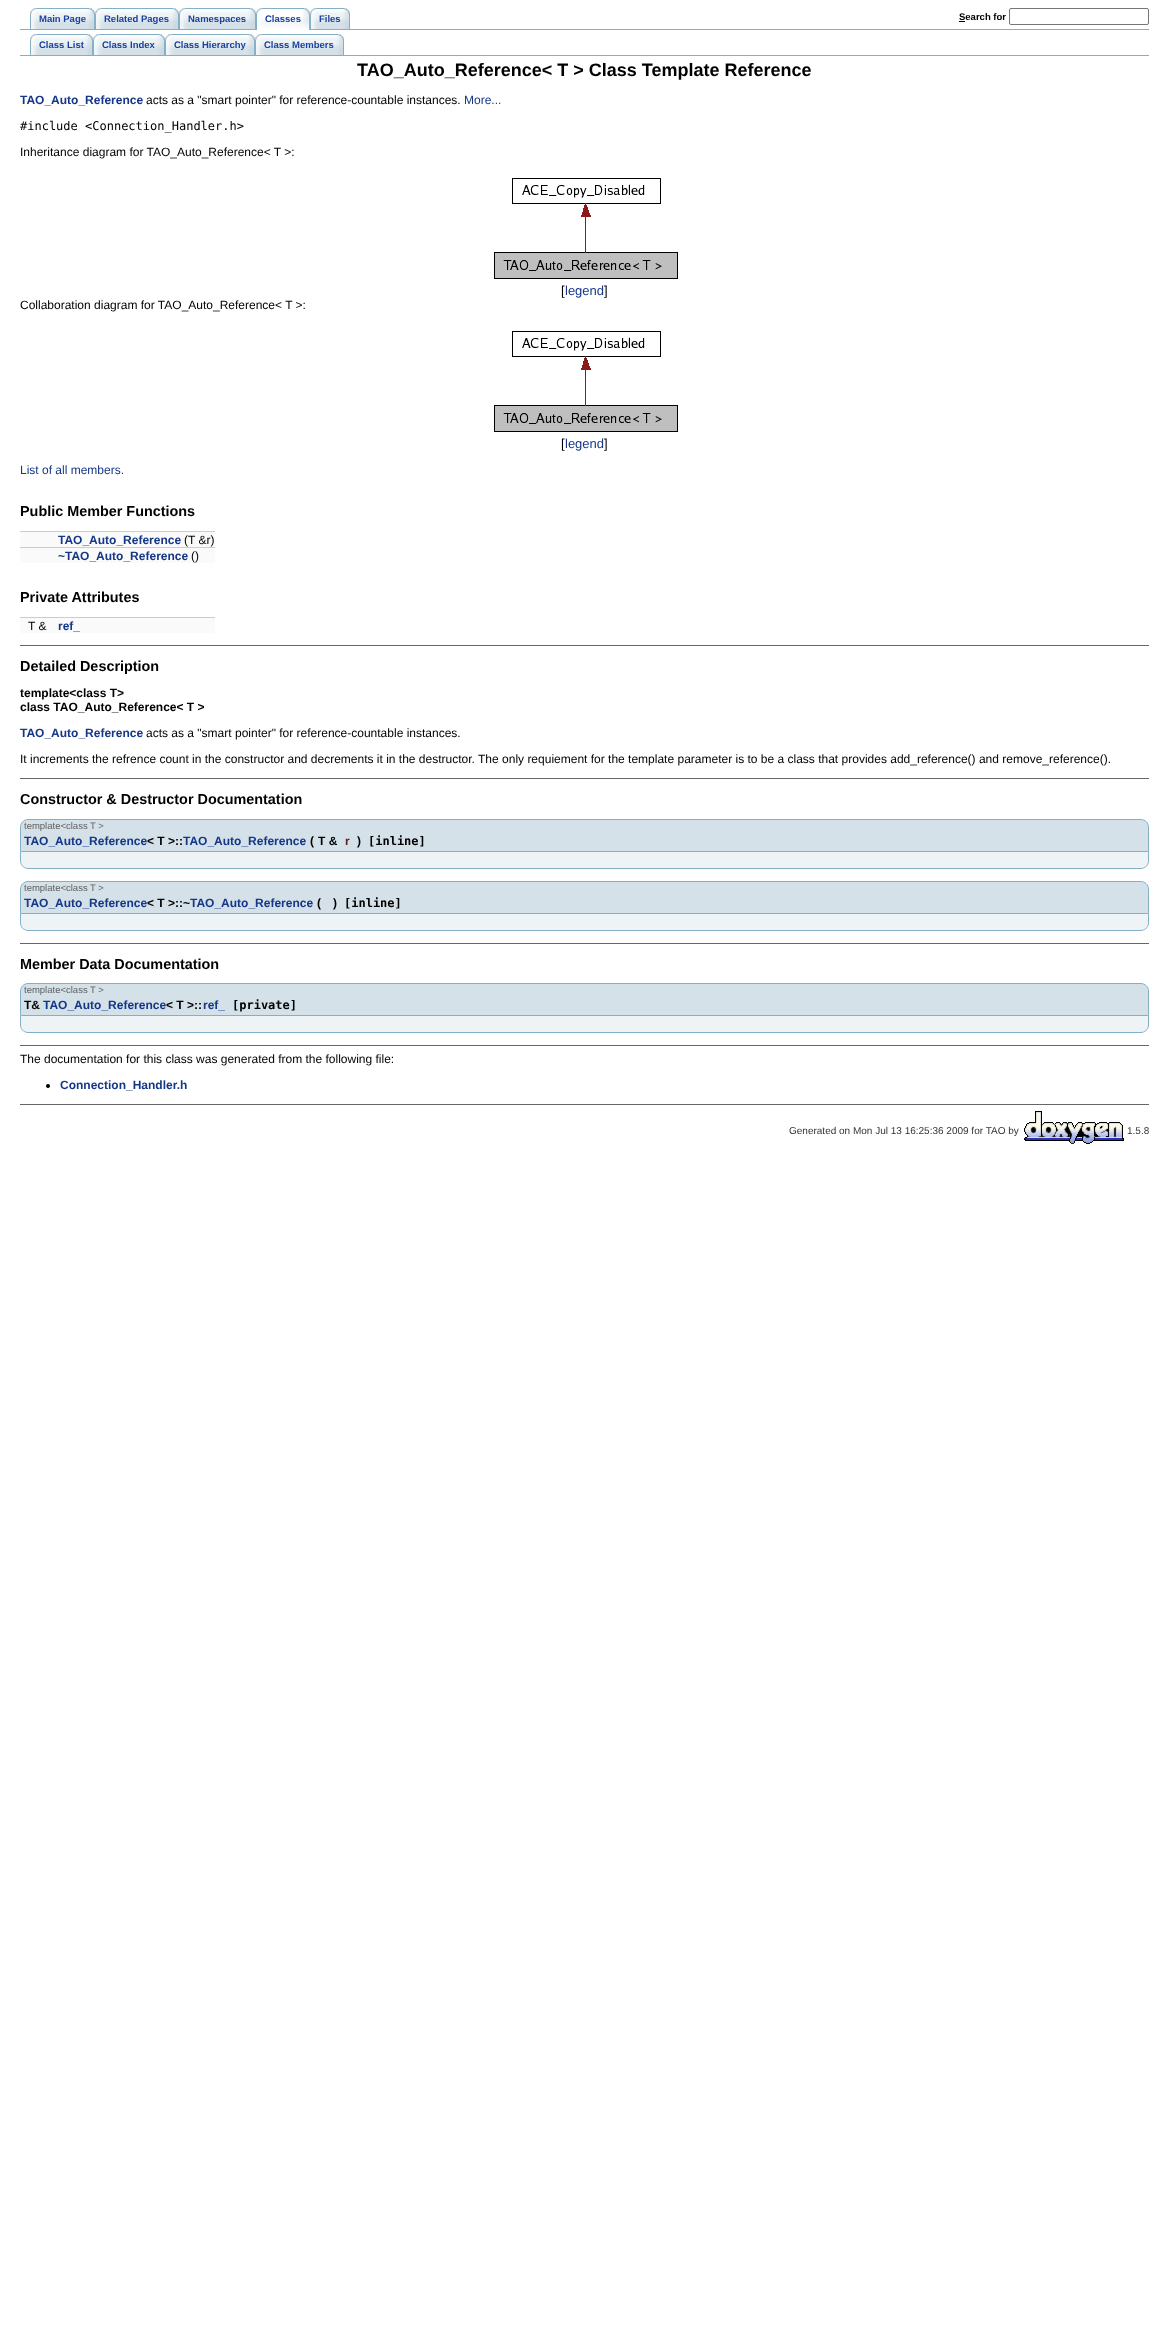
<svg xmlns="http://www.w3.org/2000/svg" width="1169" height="2339">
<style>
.a{font:bold 9.5px Liberation Sans;fill:#1a419d}
.b{font:bold 9.5px Liberation Sans;fill:#000}
.c{font:bold 18px Liberation Sans;fill:#000}
.d{font:bold 12px Liberation Sans;fill:#153788}
.e{font:12px Liberation Sans;fill:#000}
.f{font:12px Liberation Sans;fill:#153788}
.g{font:12px DejaVu Sans Mono;fill:#000}
.h{font:13px Liberation Sans;fill:#000}
.i{font:13px Liberation Sans;fill:#153788}
.j{font:bold 14.4px Liberation Sans;fill:#000}
.k{font:bold 12px Liberation Sans;fill:#000}
.l{font:9.5px Liberation Sans;fill:#606060}
.m{font:bold 12px Liberation Sans;fill:#602020}
.n{font:bold 12px DejaVu Sans Mono;fill:#000}
.o{font:10px Liberation Sans;fill:#333}
</style>
<rect width="100%" height="100%" fill="#fff"/>
<path fill="#84b0c7" d="M20 29h1129v1H20z"/>
<image href="1.png" x="39" y="8" width="56" height="21"/>
<image href="2.png" x="30" y="8" width="9" height="21"/>
<image href="3.png" x="104" y="8" width="75" height="21"/>
<image href="2.png" x="95" y="8" width="9" height="21"/>
<image href="4.png" x="188" y="8" width="68" height="21"/>
<image href="2.png" x="179" y="8" width="9" height="21"/>
<image href="5.png" x="263" y="8" width="47" height="22"/>
<image href="6.png" x="256" y="8" width="7" height="22"/>
<image href="7.png" x="319" y="8" width="31" height="21"/>
<image href="2.png" x="310" y="8" width="9" height="21"/>
<path fill="#000" d="M959 21h6v1H959z"/>
<rect fill="none" stroke="#767676" x="1009.5" y="8.5" width="139" height="16" rx="1.5"/>
<path fill="#84b0c7" d="M20 55h1129v1H20z"/>
<image href="8.png" x="39" y="34" width="54" height="21"/>
<image href="2.png" x="30" y="34" width="9" height="21"/>
<image href="9.png" x="102" y="34" width="63" height="21"/>
<image href="2.png" x="93" y="34" width="9" height="21"/>
<image href="10.png" x="174" y="34" width="81" height="21"/>
<image href="2.png" x="165" y="34" width="9" height="21"/>
<image href="11.png" x="264" y="34" width="80" height="21"/>
<image href="2.png" x="255" y="34" width="9" height="21"/>
<image href="12.png" x="494" y="178" width="184" height="101"/>
<image href="12.png" x="494" y="331" width="184" height="101"/>
<path fill="#fafafa" d="M20 532h195v15H20z"/>
<path fill="#ccc" d="M20 531h195v1H20z"/>
<path fill="#fafafa" d="M20 548h195v15H20z"/>
<path fill="#ccc" d="M20 547h195v1H20z"/>
<path fill="#fafafa" d="M20 618h195v15H20z"/>
<path fill="#ccc" d="M20 617h195v1H20z"/>
<path fill="#666" d="M20 645h1129v1H20z"/>
<path fill="#666" d="M20 778h1129v1H20z"/>
<path fill="#d5e1e8" stroke="#84b0c7" d="M28 819.5h1113c4 0 7.5 3.5 7.5 7.5v24.5h-1128v-24.5c0-4 3.5-7.5 7.5-7.5z"/>
<path fill="#eef3f5" d="M21 852h1127v9c0 4-3 7-7 7h-1113c-4 0-7-3-7-7z"/>
<path fill="#84b0c7" fill-rule="evenodd" d="M20 852h1129v9c0 4-4 8-8 8h-1113c-4 0-8-4-8-8zm1 0h1127v9c0 4-3 7-7 7h-1113c-4 0-7-3-7-7z"/>
<path fill="#d5e1e8" stroke="#84b0c7" d="M28 881.5h1113c4 0 7.5 3.5 7.5 7.5v24.5h-1128v-24.5c0-4 3.5-7.5 7.5-7.5z"/>
<path fill="#eef3f5" d="M21 914h1127v9c0 4-3 7-7 7h-1113c-4 0-7-3-7-7z"/>
<path fill="#84b0c7" fill-rule="evenodd" d="M20 914h1129v9c0 4-4 8-8 8h-1113c-4 0-8-4-8-8zm1 0h1127v9c0 4-3 7-7 7h-1113c-4 0-7-3-7-7z"/>
<path fill="#666" d="M20 943h1129v1H20z"/>
<path fill="#d5e1e8" stroke="#84b0c7" d="M28 983.5h1113c4 0 7.5 3.5 7.5 7.5v24.5h-1128v-24.5c0-4 3.5-7.5 7.5-7.5z"/>
<path fill="#eef3f5" d="M21 1016h1127v9c0 4-3 7-7 7h-1113c-4 0-7-3-7-7z"/>
<path fill="#84b0c7" fill-rule="evenodd" d="M20 1016h1129v9c0 4-4 8-8 8h-1113c-4 0-8-4-8-8zm1 0h1127v9c0 4-3 7-7 7h-1113c-4 0-7-3-7-7z"/>
<path fill="#666" d="M20 1045h1129v1H20z"/>
<circle fill="#000" cx="48" cy="1086" r="2"/>
<path fill="#666" d="M20 1104h1129v1H20z"/>
<image href="13.png" x="1024" y="1111" width="100" height="33"/>
<text class="a" x="39" y="22">Main Page</text>
<text class="a" x="104" y="22">Related Pages</text>
<text class="a" x="188" y="22">Namespaces</text>
<text class="a" x="265" y="22">Classes</text>
<text class="a" x="319" y="22">Files</text>
<text class="b" x="959" y="20">Search for</text>
<text class="a" x="39" y="48">Class List</text>
<text class="a" x="102" y="48">Class Index</text>
<text class="a" x="174" y="48">Class Hierarchy</text>
<text class="a" x="264" y="48">Class Members</text>
<text class="c" x="357" y="76">TAO_Auto_Reference&lt; T &gt; Class Template Reference</text>
<text class="d" x="20" y="104">TAO_Auto_Reference</text>
<text class="e" x="146" y="104">acts as a "smart pointer" for reference-countable instances.</text>
<text class="f" x="464" y="104">More...</text>
<text class="g" x="20" y="130">#include &lt;Connection_Handler.h&gt;</text>
<text class="e" x="20" y="156">Inheritance diagram for TAO_Auto_Reference&lt; T &gt;:</text>
<text class="h" x="561" y="295">[</text>
<text class="i" x="565" y="295">legend</text>
<text class="h" x="604" y="295">]</text>
<text class="e" x="20" y="309">Collaboration diagram for TAO_Auto_Reference&lt; T &gt;:</text>
<text class="h" x="561" y="448">[</text>
<text class="i" x="565" y="448">legend</text>
<text class="h" x="604" y="448">]</text>
<text class="f" x="20" y="474">List of all members.</text>
<text class="j" x="20" y="516">Public Member Functions</text>
<text class="d" x="58" y="544">TAO_Auto_Reference</text>
<text class="e" x="184" y="544">(T &amp;r)</text>
<text class="d" x="58" y="560">~TAO_Auto_Reference</text>
<text class="e" x="191" y="560">()</text>
<text class="j" x="20" y="602">Private Attributes</text>
<text class="e" x="28" y="630">T &amp;</text>
<text class="d" x="58" y="630">ref_</text>
<text class="j" x="20" y="671">Detailed Description</text>
<text class="k" x="20" y="697">template&lt;class T&gt;</text>
<text class="k" x="20" y="711">class TAO_Auto_Reference&lt; T &gt;</text>
<text class="d" x="20" y="737">TAO_Auto_Reference</text>
<text class="e" x="146" y="737">acts as a "smart pointer" for reference-countable instances.</text>
<text class="e" x="20" y="763">It increments the refrence count in the constructor and decrements it in the destructor. The only requiement for the template parameter is to be a class that provides add_reference() and remove_reference().</text>
<text class="j" x="20" y="804">Constructor &amp; Destructor Documentation</text>
<text class="l" x="24" y="829">template&lt;class T &gt;</text>
<text class="d" x="24" y="845">TAO_Auto_Reference</text>
<text class="k" x="147" y="845">&lt; T &gt;::</text>
<text class="d" x="183" y="845">TAO_Auto_Reference</text>
<text class="k" x="310" y="845">(</text>
<text class="k" x="318" y="845">T &amp;</text>
<text class="m" x="345" y="845">r</text>
<text class="k" x="357" y="845">)</text>
<text class="n" x="368" y="845">[inline]</text>
<text class="l" x="24" y="891">template&lt;class T &gt;</text>
<text class="d" x="24" y="907">TAO_Auto_Reference</text>
<text class="k" x="147" y="907">&lt; T &gt;::~</text>
<text class="d" x="190" y="907">TAO_Auto_Reference</text>
<text class="k" x="317" y="907">(</text>
<text class="k" x="333" y="907">)</text>
<text class="n" x="344" y="907">[inline]</text>
<text class="j" x="20" y="969">Member Data Documentation</text>
<text class="l" x="24" y="993">template&lt;class T &gt;</text>
<text class="k" x="24" y="1009">T&amp;</text>
<text class="d" x="43" y="1009">TAO_Auto_Reference</text>
<text class="k" x="166" y="1009">&lt; T &gt;::</text>
<text class="d" x="203" y="1009">ref_</text>
<text class="n" x="232" y="1009">[private]</text>
<text class="e" x="20" y="1063">The documentation for this class was generated from the following file:</text>
<text class="d" x="60" y="1089">Connection_Handler.h</text>
<text class="o" x="789" y="1134">Generated on Mon Jul 13 16:25:36 2009 for TAO by</text>
<text class="o" x="1127" y="1134">1.5.8</text>
</svg>
